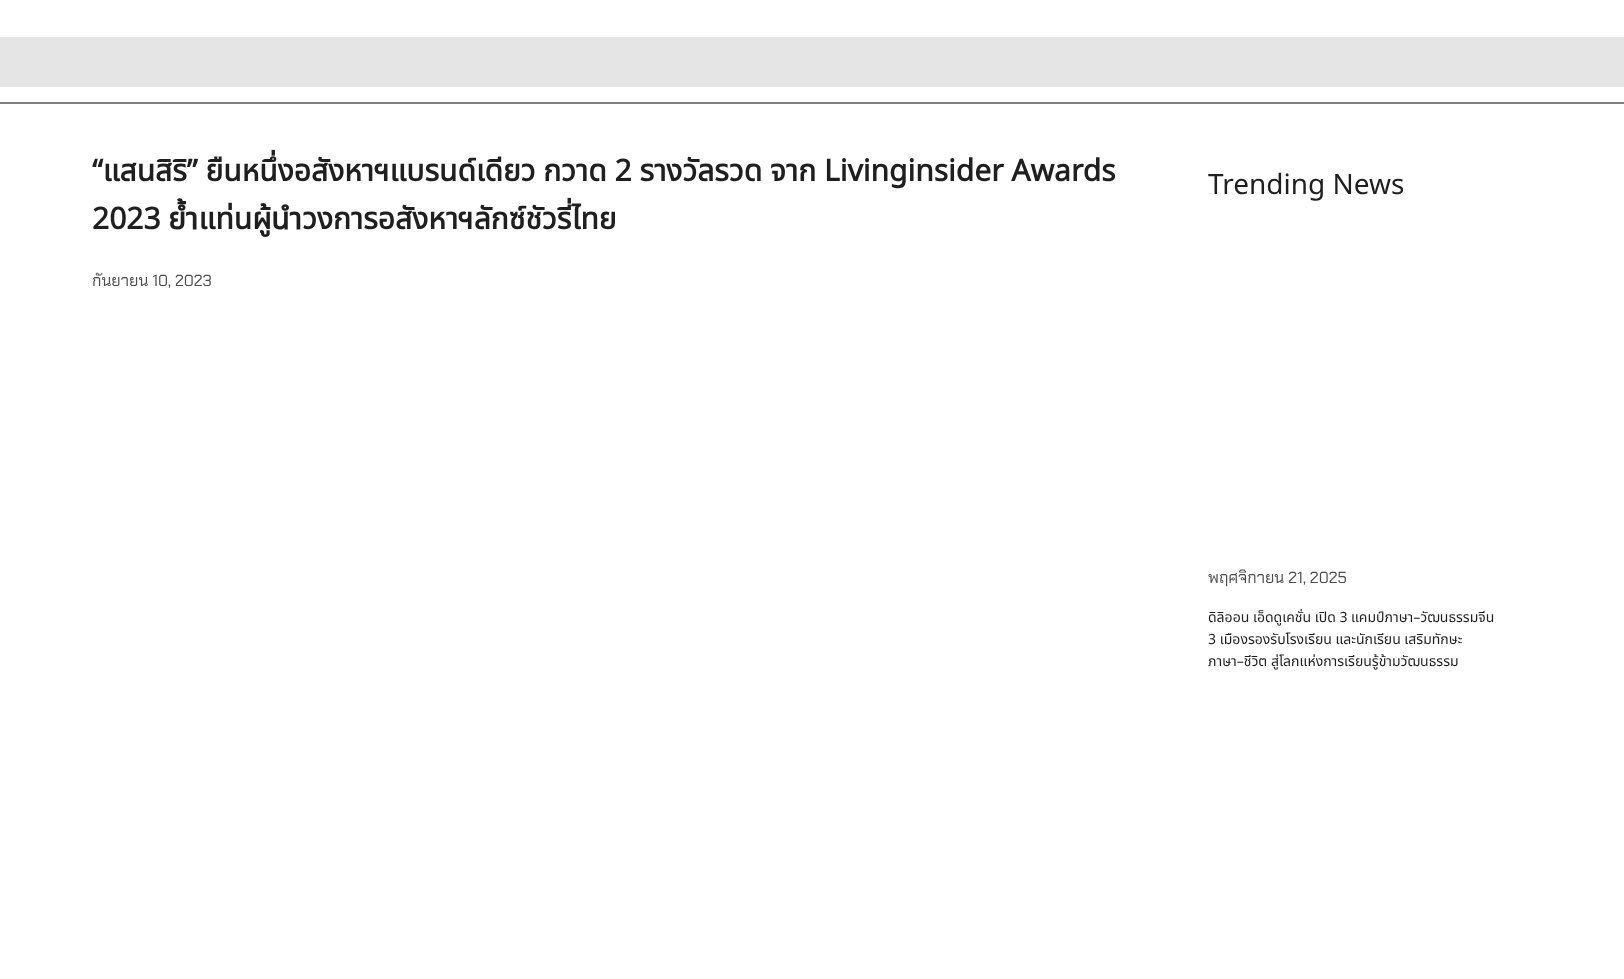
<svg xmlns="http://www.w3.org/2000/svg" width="1624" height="979">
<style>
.a{font:bold 30px Noto Sans Thai;fill:#1f1f1f}
.b{font:16px Chakra Petch;fill:#4c4c4c}
.c{font:28px Noto Sans Thai;fill:#1f1f1f}
.d{font:14px Noto Sans Thai;fill:#1f1f1f}
</style>
<rect width="100%" height="100%" fill="#fff"/>
<path fill="#e5e5e5" d="M0 37h1624v50H0z"/>
<path fill="#808080" d="M0 102h1624v2H0z"/>
<text class="a" x="92" y="181">“แสนสิริ” ยืนหนึ่งอสังหาฯแบรนด์เดียว กวาด 2 รางวัลรวด จาก Livinginsider Awards</text>
<text class="a" x="92" y="229">2023 ย้ำแท่นผู้นำวงการอสังหาฯลักซ์ชัวรี่ไทย</text>
<text class="b" x="92" y="286">กันยายน 10, 2023</text>
<text class="c" x="1208" y="194">Trending News</text>
<text class="b" x="1208" y="583">พฤศจิกายน 21, 2025</text>
<text class="d" x="1208" y="622">ดิลิออน เอ็ดดูเคชั่น เปิด 3 แคมป์ภาษา–วัฒนธรรมจีน</text>
<text class="d" x="1208" y="644">3 เมืองรองรับโรงเรียน และนักเรียน เสริมทักษะ</text>
<text class="d" x="1208" y="666">ภาษา–ชีวิต สู่โลกแห่งการเรียนรู้ข้ามวัฒนธรรม</text>
</svg>
